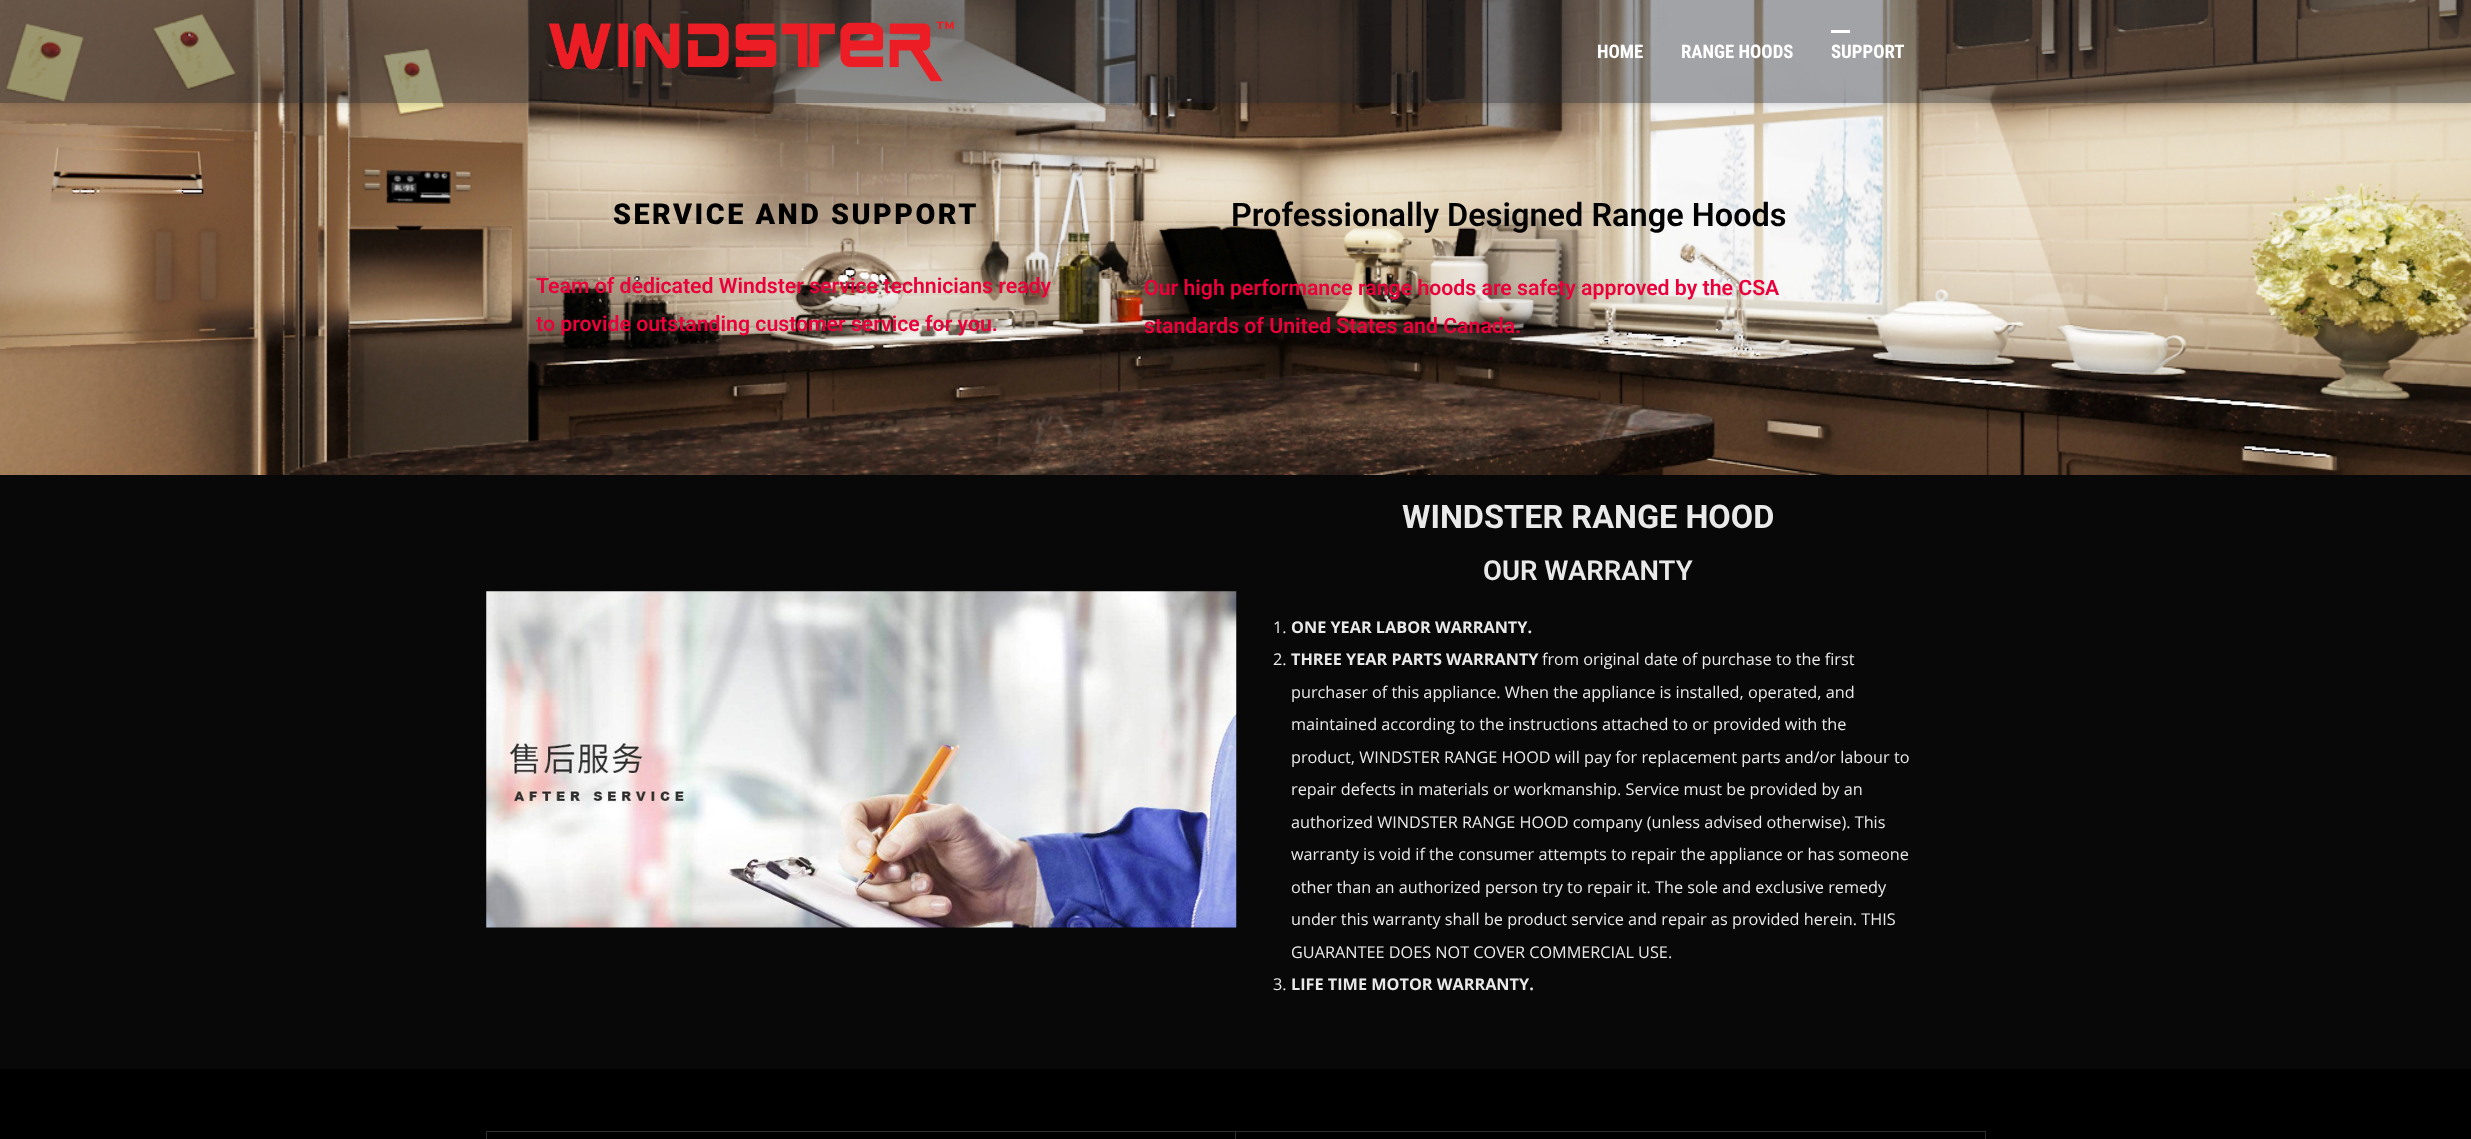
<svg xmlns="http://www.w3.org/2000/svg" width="2471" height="1139">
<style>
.a{font:bold 18.75px Roboto Condensed;fill:#fff}
.b{font:900 28.75px Roboto;letter-spacing:2.5px;fill:#000}
.c{font:600 21.25px Roboto;fill:#ea003a}
.d{font:600 32.5px Roboto;fill:#000}
.e{font:bold 32.5px Roboto;fill:#e9e9e9}
.f{font:600 27.5px Roboto;fill:#e9e9e9}
.g{font:16.25px Open Sans;fill:#e9e9e9}
.h{font:bold 16.25px Open Sans;fill:#e9e9e9}
</style>
<defs>
<clipPath id="clip1"><path d="M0 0h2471v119h-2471zm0 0h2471v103h-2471z" clip-rule="evenodd"/></clipPath>
</defs>
<rect width="100%" height="100%" fill="#fff"/>
<image href="2.png" x="0" y="0" width="2471" height="475"/>
<g clip-path="url(#clip1)">
<path fill="#00000033" filter="blur(5px)" d="M0 0h2471v103H0z"/>
</g>
<path fill="#1e242a66" d="M0 0h2471v103H0z"/>
<image href="1.png" x="548" y="21" width="406" height="61"/>
<path fill="#fff" d="M1831 30h19v3H1831z"/>
<path fill="#080808" d="M0 475h2471v594H0z"/>
<image href="3.png" x="486" y="591" width="751" height="337"/>
<path fill="#000" d="M0 1069h2471v70H0z"/>
<path fill="none" stroke="#303030" d="M486.5 1131.5h749v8H486.5z"/>
<path fill="#2d2d2d" d="M1236 1131h750v1H1236z"/>
<path fill="#2d2d2d" d="M1985 1131h1v8H1985z"/>
<text class="a" x="1597" y="58">HOME</text>
<text class="a" x="1681" y="58">RANGE HOODS</text>
<text class="a" x="1831" y="58">SUPPORT</text>
<text class="b" x="613" y="224">SERVICE AND SUPPORT</text>
<text class="c" x="536" y="293">Team of dedicated Windster service technicians ready</text>
<text class="c" x="536" y="331">to provide outstanding customer service for you.</text>
<text class="d" x="1231" y="226">Professionally Designed Range Hoods</text>
<text class="c" x="1144" y="295">Our high performance range hoods are safety approved by the CSA</text>
<text class="c" x="1144" y="333">standards of United States and Canada.</text>
<text class="e" x="1402" y="528">WINDSTER RANGE HOOD</text>
<text class="f" x="1483" y="580">OUR WARRANTY</text>
<text class="g" x="1273" y="633">1.</text>
<text class="h" x="1291" y="633">ONE YEAR LABOR WARRANTY.</text>
<text class="g" x="1273" y="665">2.</text>
<text class="h" x="1291" y="665">THREE YEAR PARTS WARRANTY</text>
<text class="g" x="1542" y="665">from original date of purchase to the first</text>
<text class="g" x="1291" y="698">purchaser of this appliance. When the appliance is installed, operated, and</text>
<text class="g" x="1291" y="730">maintained according to the instructions attached to or provided with the</text>
<text class="g" x="1291" y="763">product, WINDSTER RANGE HOOD will pay for replacement parts and/or labour to</text>
<text class="g" x="1291" y="795">repair defects in materials or workmanship. Service must be provided by an</text>
<text class="g" x="1291" y="828">authorized WINDSTER RANGE HOOD company (unless advised otherwise). This</text>
<text class="g" x="1291" y="860">warranty is void if the consumer attempts to repair the appliance or has someone</text>
<text class="g" x="1291" y="893">other than an authorized person try to repair it. The sole and exclusive remedy</text>
<text class="g" x="1291" y="925">under this warranty shall be product service and repair as provided herein. THIS</text>
<text class="g" x="1291" y="958">GUARANTEE DOES NOT COVER COMMERCIAL USE.</text>
<text class="g" x="1273" y="990">3.</text>
<text class="h" x="1291" y="990">LIFE TIME MOTOR WARRANTY.</text>
</svg>
